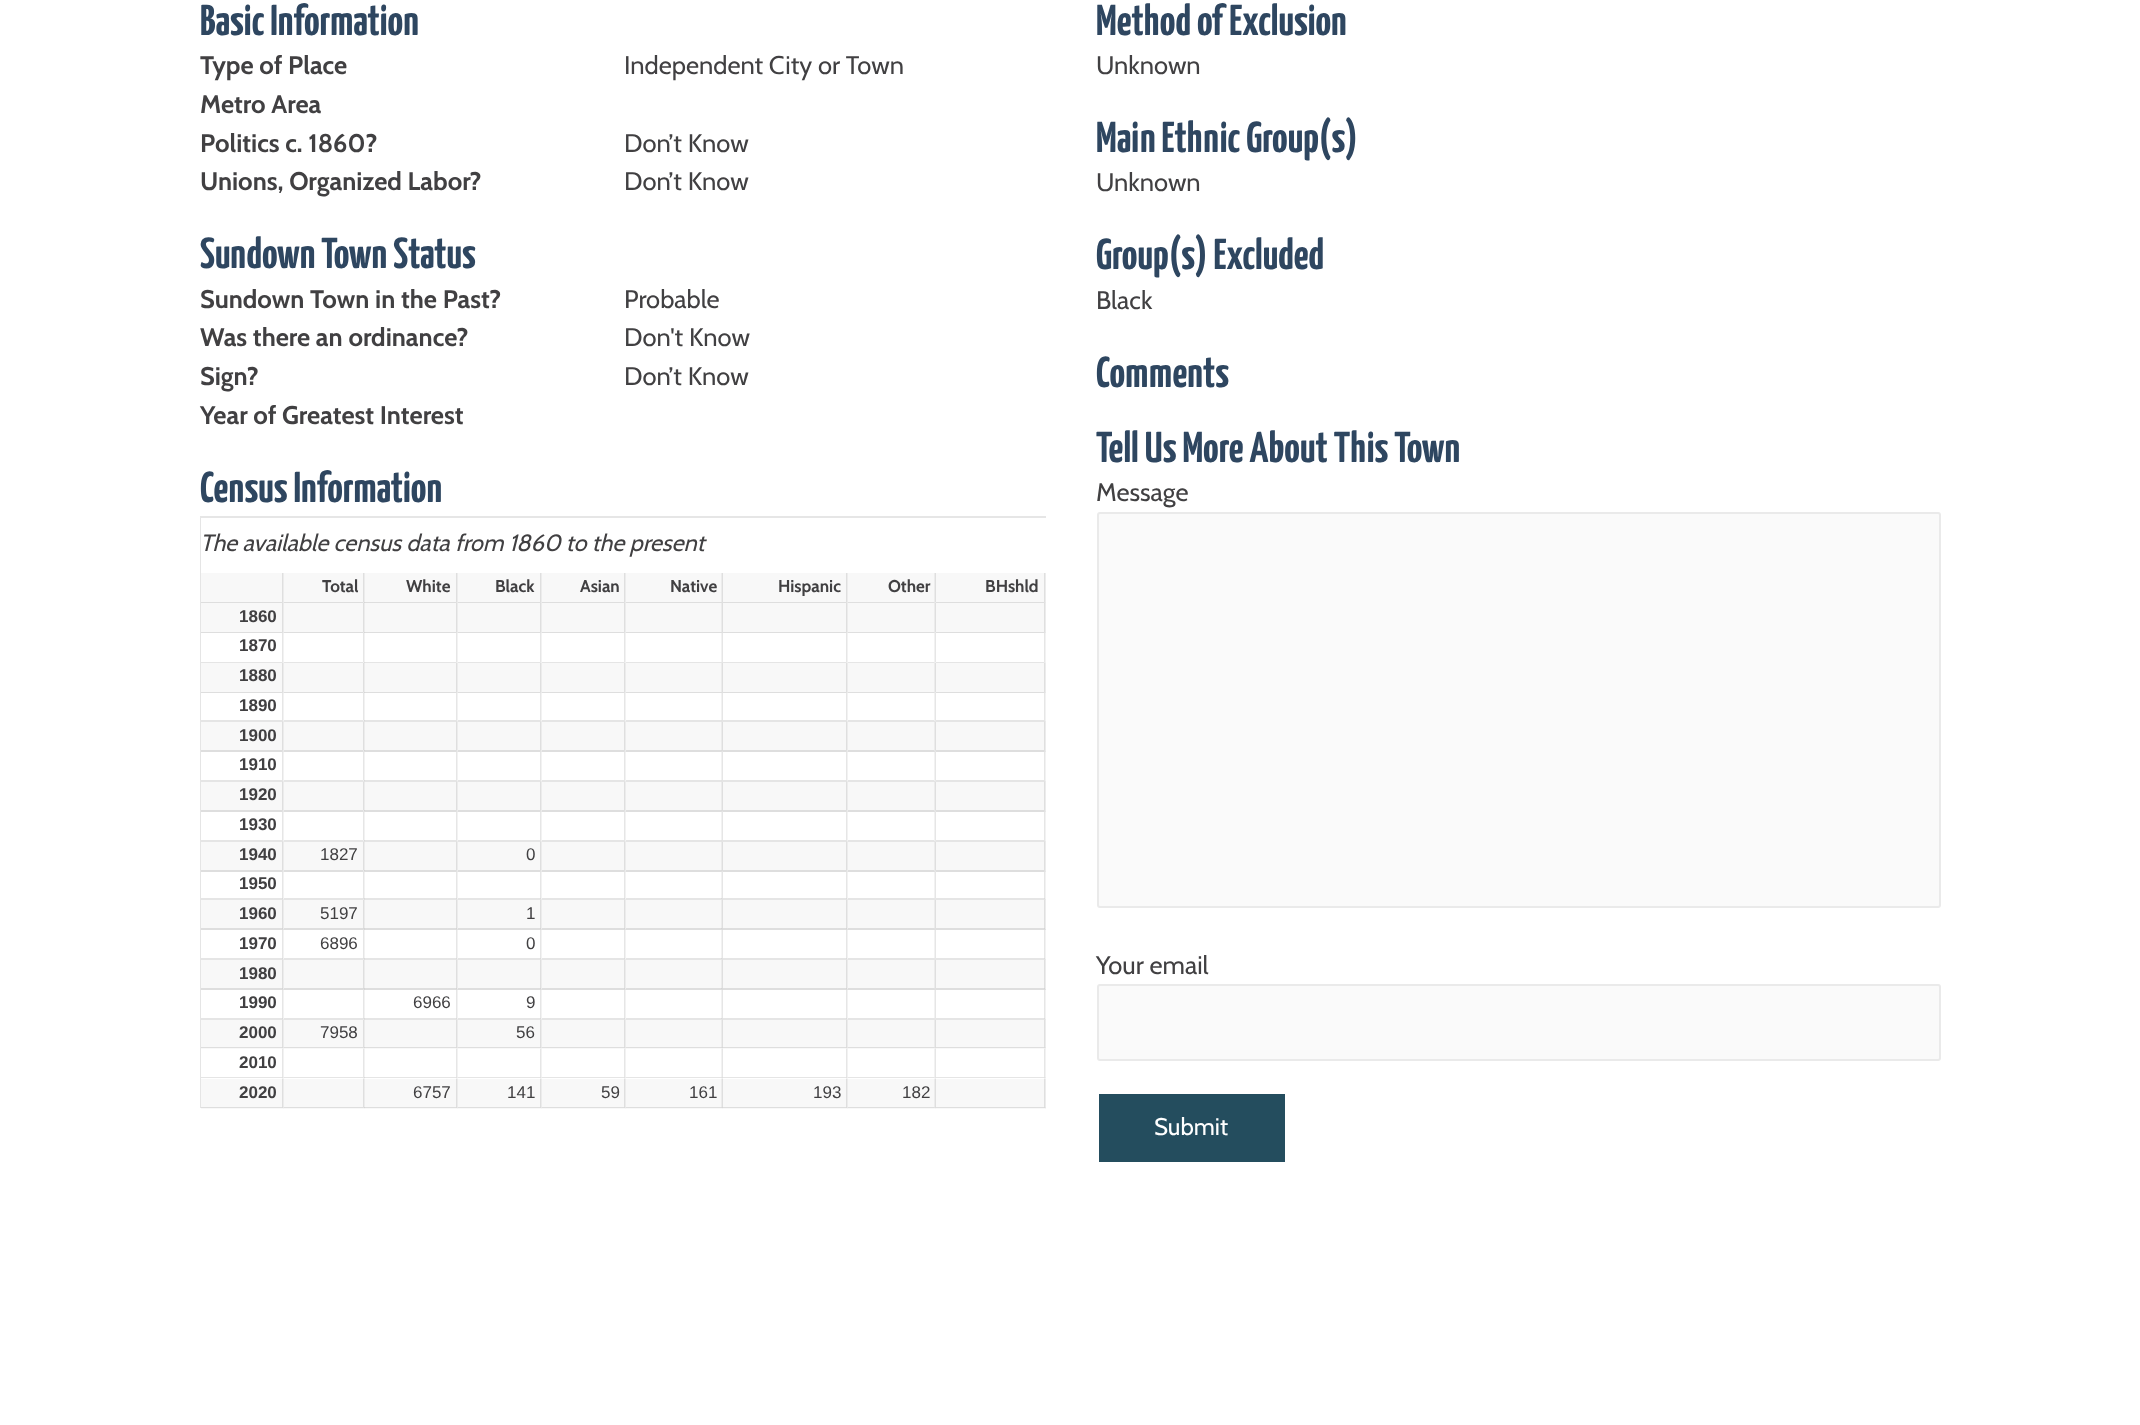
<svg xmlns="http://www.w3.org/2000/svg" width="2140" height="1425">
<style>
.a{font:bold 43.25px Yanone Kaffeesatz;fill:#2e4660}
.b{font:bold 25.5px Cabin;fill:#414042}
.c{font:25.5px Cabin;fill:#414042}
.d{font:italic 23.5px Cabin;fill:#414042}
.e{font:bold 17px Cabin;fill:#414042}
.f{font:bold 17px Liberation Sans;fill:#414042}
.g{font:17px Liberation Sans;fill:#414042}
.h{font:24px Cabin;fill:#fff}
</style>
<rect width="100%" height="100%" fill="#fff"/>
<path fill="#e6e6e6" d="M200 516h846v2h-845z"/>
<path fill="#0000001a" d="M200 1108v-592l1 2v590z"/>
<path fill="#f8f8f8" d="M201 573h845v60H201z"/>
<path fill="#dfdfdf" d="M283.5 573v30l-1.5-1.5v-28.5z"/>
<path fill="#0000001a" d="M284 603h-83v-1h81z"/>
<path fill="#dfdfdf" d="M364.5 573v30l-1.5-1.5v-28.5z"/>
<path fill="#0000001a" d="M364 603h-80v-1h79z"/>
<path fill="#dfdfdf" d="M457.5 573v30l-1.5-1.5v-28.5z"/>
<path fill="#0000001a" d="M458 603h-94v-1h92z"/>
<path fill="#dfdfdf" d="M541.5 573v30l-1.5-1.5v-28.5z"/>
<path fill="#0000001a" d="M542 603h-84v-1h82z"/>
<path fill="#dfdfdf" d="M625.5 573v30l-1.5-1.5v-28.5z"/>
<path fill="#0000001a" d="M626 603h-84v-1h82z"/>
<path fill="#dfdfdf" d="M723 573v30l-1.5-1.5v-28.5z"/>
<path fill="#0000001a" d="M723 603h-97v-1h96z"/>
<path fill="#dfdfdf" d="M847.5 573v30l-1.5-1.5v-28.5z"/>
<path fill="#0000001a" d="M848 603h-125v-1h123z"/>
<path fill="#dfdfdf" d="M936 573v30l-1.5-1.5v-28.5z"/>
<path fill="#dfdfdf" d="M936 603h-88v-1h86z"/>
<path fill="#dfdfdf" d="M1045.5 573v30l-1.5-1.5v-28.5z"/>
<path fill="#0000001a" d="M1046 603h-110v-1h108z"/>
<path fill="#dfdfdf" d="M283.5 603v30l-1.5-1.5v-28.5z"/>
<path fill="#0000001a" d="M284 633h-83v-1h81z"/>
<path fill="#dfdfdf" d="M364.5 603v30l-1.5-1.5v-28.5z"/>
<path fill="#0000001a" d="M364 633h-80v-1h79z"/>
<path fill="#dfdfdf" d="M457.5 603v30l-1.5-1.5v-28.5z"/>
<path fill="#0000001a" d="M458 633h-94v-1h92z"/>
<path fill="#dfdfdf" d="M541.5 603v30l-1.5-1.5v-28.5z"/>
<path fill="#0000001a" d="M542 633h-84v-1h82z"/>
<path fill="#dfdfdf" d="M625.5 603v30l-1.5-1.5v-28.5z"/>
<path fill="#0000001a" d="M626 633h-84v-1h82z"/>
<path fill="#dfdfdf" d="M723 603v30l-1.5-1.5v-28.5z"/>
<path fill="#0000001a" d="M723 633h-97v-1h96z"/>
<path fill="#dfdfdf" d="M847.5 603v30l-1.5-1.5v-28.5z"/>
<path fill="#0000001a" d="M848 633h-125v-1h123z"/>
<path fill="#dfdfdf" d="M936 603v30l-1.5-1.5v-28.5z"/>
<path fill="#dfdfdf" d="M936 633h-88v-1h86z"/>
<path fill="#dfdfdf" d="M1045.5 603v30l-1.5-1.5v-28.5z"/>
<path fill="#0000001a" d="M1046 633h-110v-1h108z"/>
<path fill="#e6e6e6" d="M283.5 633v30l-1.5-1.5v-28.5z"/>
<path fill="#0000001a" d="M284 663h-83v-1h81z"/>
<path fill="#e6e6e6" d="M364.5 633v30l-1.5-1.5v-28.5z"/>
<path fill="#0000001a" d="M364 663h-80v-1h79z"/>
<path fill="#e6e6e6" d="M457.5 633v30l-1.5-1.5v-28.5z"/>
<path fill="#0000001a" d="M458 663h-94v-1h92z"/>
<path fill="#e6e6e6" d="M541.5 633v30l-1.5-1.5v-28.5z"/>
<path fill="#0000001a" d="M542 663h-84v-1h82z"/>
<path fill="#e6e6e6" d="M625.5 633v30l-1.5-1.5v-28.5z"/>
<path fill="#0000001a" d="M626 663h-84v-1h82z"/>
<path fill="#e6e6e6" d="M723 633v30l-1.5-1.5v-28.5z"/>
<path fill="#0000001a" d="M723 663h-97v-1h96z"/>
<path fill="#e6e6e6" d="M847.5 633v30l-1.5-1.5v-28.5z"/>
<path fill="#0000001a" d="M848 663h-125v-1h123z"/>
<path fill="#e6e6e6" d="M936 633v30l-1.5-1.5v-28.5z"/>
<path fill="#e6e6e6" d="M936 663h-88v-1h86z"/>
<path fill="#e6e6e6" d="M1045.5 633v30l-1.5-1.5v-28.5z"/>
<path fill="#0000001a" d="M1046 663h-110v-1h108z"/>
<path fill="#f8f8f8" d="M201 663h845v30H201z"/>
<path fill="#dfdfdf" d="M283.5 663v30l-1.5-1.5v-28.5z"/>
<path fill="#0000001a" d="M284 693h-83v-1h81z"/>
<path fill="#dfdfdf" d="M364.5 663v30l-1.5-1.5v-28.5z"/>
<path fill="#0000001a" d="M364 693h-80v-1h79z"/>
<path fill="#dfdfdf" d="M457.5 663v30l-1.5-1.5v-28.5z"/>
<path fill="#0000001a" d="M458 693h-94v-1h92z"/>
<path fill="#dfdfdf" d="M541.5 663v30l-1.5-1.5v-28.5z"/>
<path fill="#0000001a" d="M542 693h-84v-1h82z"/>
<path fill="#dfdfdf" d="M625.5 663v30l-1.5-1.5v-28.5z"/>
<path fill="#0000001a" d="M626 693h-84v-1h82z"/>
<path fill="#dfdfdf" d="M723 663v30l-1.5-1.5v-28.5z"/>
<path fill="#0000001a" d="M723 693h-97v-1h96z"/>
<path fill="#dfdfdf" d="M847.5 663v30l-1.5-1.5v-28.5z"/>
<path fill="#0000001a" d="M848 693h-125v-1h123z"/>
<path fill="#dfdfdf" d="M936 663v30l-1.5-1.5v-28.5z"/>
<path fill="#dfdfdf" d="M936 693h-88v-1h86z"/>
<path fill="#dfdfdf" d="M1045.5 663v30l-1.5-1.5v-28.5z"/>
<path fill="#0000001a" d="M1046 693h-110v-1h108z"/>
<path fill="#e6e6e6" d="M283.5 693v28.5l-1.5-1.5v-27z"/>
<path fill="#0000001a" d="M284 722h-83v-2h81z"/>
<path fill="#e6e6e6" d="M364.5 693v28.5l-1.5-1.5v-27z"/>
<path fill="#e6e6e6" d="M364 722h-80v-2h79z"/>
<path fill="#e6e6e6" d="M457.5 693v28.5l-1.5-1.5v-27z"/>
<path fill="#0000001a" d="M458 722h-94v-2h92z"/>
<path fill="#e6e6e6" d="M541.5 693v28.5l-1.5-1.5v-27z"/>
<path fill="#0000001a" d="M542 722h-84v-2h82z"/>
<path fill="#e6e6e6" d="M625.5 693v28.5l-1.5-1.5v-27z"/>
<path fill="#0000001a" d="M626 722h-84v-2h82z"/>
<path fill="#e6e6e6" d="M723 693v28.5l-1.5-1.5v-27z"/>
<path fill="#0000001a" d="M723 722h-97v-2h96z"/>
<path fill="#e6e6e6" d="M847.5 693v28.5l-1.5-1.5v-27z"/>
<path fill="#0000001a" d="M848 722h-125v-2h123z"/>
<path fill="#e6e6e6" d="M936 693v28.5l-1.5-1.5v-27z"/>
<path fill="#0000001a" d="M936 722h-88v-2h86z"/>
<path fill="#e6e6e6" d="M1045.5 693v28.5l-1.5-1.5v-27z"/>
<path fill="#0000001a" d="M1046 722h-110v-2h108z"/>
<path fill="#f8f8f8" d="M201 722h845v30H201z"/>
<path fill="#dfdfdf" d="M283.5 721.5v30l-1.5-1.5v-28.5z"/>
<path fill="#0000001a" d="M284 752h-83v-2h81z"/>
<path fill="#dfdfdf" d="M364.5 721.5v30l-1.5-1.5v-28.5z"/>
<path fill="#dfdfdf" d="M364 752h-80v-2h79z"/>
<path fill="#dfdfdf" d="M457.5 721.5v30l-1.5-1.5v-28.5z"/>
<path fill="#0000001a" d="M458 752h-94v-2h92z"/>
<path fill="#dfdfdf" d="M541.5 721.5v30l-1.5-1.5v-28.5z"/>
<path fill="#0000001a" d="M542 752h-84v-2h82z"/>
<path fill="#dfdfdf" d="M625.5 721.5v30l-1.5-1.5v-28.5z"/>
<path fill="#0000001a" d="M626 752h-84v-2h82z"/>
<path fill="#dfdfdf" d="M723 721.5v30l-1.5-1.5v-28.5z"/>
<path fill="#0000001a" d="M723 752h-97v-2h96z"/>
<path fill="#dfdfdf" d="M847.5 721.5v30l-1.5-1.5v-28.5z"/>
<path fill="#0000001a" d="M848 752h-125v-2h123z"/>
<path fill="#dfdfdf" d="M936 721.5v30l-1.5-1.5v-28.5z"/>
<path fill="#0000001a" d="M936 752h-88v-2h86z"/>
<path fill="#dfdfdf" d="M1045.5 721.5v30l-1.5-1.5v-28.5z"/>
<path fill="#0000001a" d="M1046 752h-110v-2h108z"/>
<path fill="#e6e6e6" d="M283.5 751.5v30l-1.5-1.5v-28.5z"/>
<path fill="#0000001a" d="M284 782h-83v-2h81z"/>
<path fill="#e6e6e6" d="M364.5 751.5v30l-1.5-1.5v-28.5z"/>
<path fill="#e6e6e6" d="M364 782h-80v-2h79z"/>
<path fill="#e6e6e6" d="M457.5 751.5v30l-1.5-1.5v-28.5z"/>
<path fill="#0000001a" d="M458 782h-94v-2h92z"/>
<path fill="#e6e6e6" d="M541.5 751.5v30l-1.5-1.5v-28.5z"/>
<path fill="#0000001a" d="M542 782h-84v-2h82z"/>
<path fill="#e6e6e6" d="M625.5 751.5v30l-1.5-1.5v-28.5z"/>
<path fill="#0000001a" d="M626 782h-84v-2h82z"/>
<path fill="#e6e6e6" d="M723 751.5v30l-1.5-1.5v-28.5z"/>
<path fill="#0000001a" d="M723 782h-97v-2h96z"/>
<path fill="#e6e6e6" d="M847.5 751.5v30l-1.5-1.5v-28.5z"/>
<path fill="#0000001a" d="M848 782h-125v-2h123z"/>
<path fill="#e6e6e6" d="M936 751.5v30l-1.5-1.5v-28.5z"/>
<path fill="#0000001a" d="M936 782h-88v-2h86z"/>
<path fill="#e6e6e6" d="M1045.5 751.5v30l-1.5-1.5v-28.5z"/>
<path fill="#0000001a" d="M1046 782h-110v-2h108z"/>
<path fill="#f8f8f8" d="M201 782h845v30H201z"/>
<path fill="#dfdfdf" d="M283.5 781.5v30l-1.5-1.5v-28.5z"/>
<path fill="#0000001a" d="M284 812h-83v-2h81z"/>
<path fill="#dfdfdf" d="M364.5 781.5v30l-1.5-1.5v-28.5z"/>
<path fill="#dfdfdf" d="M364 812h-80v-2h79z"/>
<path fill="#dfdfdf" d="M457.5 781.5v30l-1.5-1.5v-28.5z"/>
<path fill="#0000001a" d="M458 812h-94v-2h92z"/>
<path fill="#dfdfdf" d="M541.5 781.5v30l-1.5-1.5v-28.5z"/>
<path fill="#0000001a" d="M542 812h-84v-2h82z"/>
<path fill="#dfdfdf" d="M625.5 781.5v30l-1.5-1.5v-28.5z"/>
<path fill="#0000001a" d="M626 812h-84v-2h82z"/>
<path fill="#dfdfdf" d="M723 781.5v30l-1.5-1.5v-28.5z"/>
<path fill="#0000001a" d="M723 812h-97v-2h96z"/>
<path fill="#dfdfdf" d="M847.5 781.5v30l-1.5-1.5v-28.5z"/>
<path fill="#0000001a" d="M848 812h-125v-2h123z"/>
<path fill="#dfdfdf" d="M936 781.5v30l-1.5-1.5v-28.5z"/>
<path fill="#0000001a" d="M936 812h-88v-2h86z"/>
<path fill="#dfdfdf" d="M1045.5 781.5v30l-1.5-1.5v-28.5z"/>
<path fill="#0000001a" d="M1046 812h-110v-2h108z"/>
<path fill="#e6e6e6" d="M283.5 811.5v30l-1.5-1.5v-28.5z"/>
<path fill="#0000001a" d="M284 842h-83v-2h81z"/>
<path fill="#e6e6e6" d="M364.5 811.5v30l-1.5-1.5v-28.5z"/>
<path fill="#e6e6e6" d="M364 842h-80v-2h79z"/>
<path fill="#e6e6e6" d="M457.5 811.5v30l-1.5-1.5v-28.5z"/>
<path fill="#0000001a" d="M458 842h-94v-2h92z"/>
<path fill="#e6e6e6" d="M541.5 811.5v30l-1.5-1.5v-28.5z"/>
<path fill="#0000001a" d="M542 842h-84v-2h82z"/>
<path fill="#e6e6e6" d="M625.5 811.5v30l-1.5-1.5v-28.5z"/>
<path fill="#0000001a" d="M626 842h-84v-2h82z"/>
<path fill="#e6e6e6" d="M723 811.5v30l-1.5-1.5v-28.5z"/>
<path fill="#0000001a" d="M723 842h-97v-2h96z"/>
<path fill="#e6e6e6" d="M847.5 811.5v30l-1.5-1.5v-28.5z"/>
<path fill="#0000001a" d="M848 842h-125v-2h123z"/>
<path fill="#e6e6e6" d="M936 811.5v30l-1.5-1.5v-28.5z"/>
<path fill="#0000001a" d="M936 842h-88v-2h86z"/>
<path fill="#e6e6e6" d="M1045.5 811.5v30l-1.5-1.5v-28.5z"/>
<path fill="#0000001a" d="M1046 842h-110v-2h108z"/>
<path fill="#f8f8f8" d="M201 842h845v30H201z"/>
<path fill="#dfdfdf" d="M283.5 841.5v30l-1.5-1.5v-28.5z"/>
<path fill="#0000001a" d="M284 872h-83v-2h81z"/>
<path fill="#dfdfdf" d="M364.5 841.5v30l-1.5-1.5v-28.5z"/>
<path fill="#dfdfdf" d="M364 872h-80v-2h79z"/>
<path fill="#dfdfdf" d="M457.5 841.5v30l-1.5-1.5v-28.5z"/>
<path fill="#0000001a" d="M458 872h-94v-2h92z"/>
<path fill="#dfdfdf" d="M541.5 841.5v30l-1.5-1.5v-28.5z"/>
<path fill="#0000001a" d="M542 872h-84v-2h82z"/>
<path fill="#dfdfdf" d="M625.5 841.5v30l-1.5-1.5v-28.5z"/>
<path fill="#0000001a" d="M626 872h-84v-2h82z"/>
<path fill="#dfdfdf" d="M723 841.5v30l-1.5-1.5v-28.5z"/>
<path fill="#0000001a" d="M723 872h-97v-2h96z"/>
<path fill="#dfdfdf" d="M847.5 841.5v30l-1.5-1.5v-28.5z"/>
<path fill="#0000001a" d="M848 872h-125v-2h123z"/>
<path fill="#dfdfdf" d="M936 841.5v30l-1.5-1.5v-28.5z"/>
<path fill="#0000001a" d="M936 872h-88v-2h86z"/>
<path fill="#dfdfdf" d="M1045.5 841.5v30l-1.5-1.5v-28.5z"/>
<path fill="#0000001a" d="M1046 872h-110v-2h108z"/>
<path fill="#e6e6e6" d="M283.5 871.5v28.5l-1.5-1.5v-27z"/>
<path fill="#0000001a" d="M284 900h-83v-2h81z"/>
<path fill="#e6e6e6" d="M364.5 871.5v28.5l-1.5-1.5v-27z"/>
<path fill="#0000001a" d="M364 900h-80v-2h79z"/>
<path fill="#e6e6e6" d="M457.5 871.5v28.5l-1.5-1.5v-27z"/>
<path fill="#0000001a" d="M458 900h-94v-2h92z"/>
<path fill="#e6e6e6" d="M541.5 871.5v28.5l-1.5-1.5v-27z"/>
<path fill="#0000001a" d="M542 900h-84v-2h82z"/>
<path fill="#e6e6e6" d="M625.5 871.5v28.5l-1.5-1.5v-27z"/>
<path fill="#0000001a" d="M626 900h-84v-2h82z"/>
<path fill="#e6e6e6" d="M723 871.5v28.5l-1.5-1.5v-27z"/>
<path fill="#0000001a" d="M723 900h-97v-2h96z"/>
<path fill="#e6e6e6" d="M847.5 871.5v28.5l-1.5-1.5v-27z"/>
<path fill="#0000001a" d="M848 900h-125v-2h123z"/>
<path fill="#e6e6e6" d="M936 871.5v28.5l-1.5-1.5v-27z"/>
<path fill="#0000001a" d="M936 900h-88v-2h86z"/>
<path fill="#e6e6e6" d="M1045.5 871.5v28.5l-1.5-1.5v-27z"/>
<path fill="#0000001a" d="M1046 900h-110v-2h108z"/>
<path fill="#f8f8f8" d="M201 900h845v30H201z"/>
<path fill="#dfdfdf" d="M283.5 900v30l-1.5-1.5v-28.5z"/>
<path fill="#0000001a" d="M284 930h-83v-2h81z"/>
<path fill="#dfdfdf" d="M364.5 900v30l-1.5-1.5v-28.5z"/>
<path fill="#0000001a" d="M364 930h-80v-2h79z"/>
<path fill="#dfdfdf" d="M457.5 900v30l-1.5-1.5v-28.5z"/>
<path fill="#0000001a" d="M458 930h-94v-2h92z"/>
<path fill="#dfdfdf" d="M541.5 900v30l-1.5-1.5v-28.5z"/>
<path fill="#0000001a" d="M542 930h-84v-2h82z"/>
<path fill="#dfdfdf" d="M625.5 900v30l-1.5-1.5v-28.5z"/>
<path fill="#0000001a" d="M626 930h-84v-2h82z"/>
<path fill="#dfdfdf" d="M723 900v30l-1.5-1.5v-28.5z"/>
<path fill="#0000001a" d="M723 930h-97v-2h96z"/>
<path fill="#dfdfdf" d="M847.5 900v30l-1.5-1.5v-28.5z"/>
<path fill="#0000001a" d="M848 930h-125v-2h123z"/>
<path fill="#dfdfdf" d="M936 900v30l-1.5-1.5v-28.5z"/>
<path fill="#0000001a" d="M936 930h-88v-2h86z"/>
<path fill="#dfdfdf" d="M1045.5 900v30l-1.5-1.5v-28.5z"/>
<path fill="#0000001a" d="M1046 930h-110v-2h108z"/>
<path fill="#e6e6e6" d="M283.5 930v30l-1.5-1.5v-28.5z"/>
<path fill="#0000001a" d="M284 960h-83v-2h81z"/>
<path fill="#e6e6e6" d="M364.5 930v30l-1.5-1.5v-28.5z"/>
<path fill="#0000001a" d="M364 960h-80v-2h79z"/>
<path fill="#e6e6e6" d="M457.5 930v30l-1.5-1.5v-28.5z"/>
<path fill="#0000001a" d="M458 960h-94v-2h92z"/>
<path fill="#e6e6e6" d="M541.5 930v30l-1.5-1.5v-28.5z"/>
<path fill="#0000001a" d="M542 960h-84v-2h82z"/>
<path fill="#e6e6e6" d="M625.5 930v30l-1.5-1.5v-28.5z"/>
<path fill="#0000001a" d="M626 960h-84v-2h82z"/>
<path fill="#e6e6e6" d="M723 930v30l-1.5-1.5v-28.5z"/>
<path fill="#0000001a" d="M723 960h-97v-2h96z"/>
<path fill="#e6e6e6" d="M847.5 930v30l-1.5-1.5v-28.5z"/>
<path fill="#0000001a" d="M848 960h-125v-2h123z"/>
<path fill="#e6e6e6" d="M936 930v30l-1.5-1.5v-28.5z"/>
<path fill="#0000001a" d="M936 960h-88v-2h86z"/>
<path fill="#e6e6e6" d="M1045.5 930v30l-1.5-1.5v-28.5z"/>
<path fill="#0000001a" d="M1046 960h-110v-2h108z"/>
<path fill="#f8f8f8" d="M201 960h845v30H201z"/>
<path fill="#dfdfdf" d="M283.5 960v30l-1.5-1.5v-28.5z"/>
<path fill="#0000001a" d="M284 990h-83v-2h81z"/>
<path fill="#dfdfdf" d="M364.5 960v30l-1.5-1.5v-28.5z"/>
<path fill="#0000001a" d="M364 990h-80v-2h79z"/>
<path fill="#dfdfdf" d="M457.5 960v30l-1.5-1.5v-28.5z"/>
<path fill="#0000001a" d="M458 990h-94v-2h92z"/>
<path fill="#dfdfdf" d="M541.5 960v30l-1.5-1.5v-28.5z"/>
<path fill="#0000001a" d="M542 990h-84v-2h82z"/>
<path fill="#dfdfdf" d="M625.5 960v30l-1.5-1.5v-28.5z"/>
<path fill="#0000001a" d="M626 990h-84v-2h82z"/>
<path fill="#dfdfdf" d="M723 960v30l-1.5-1.5v-28.5z"/>
<path fill="#0000001a" d="M723 990h-97v-2h96z"/>
<path fill="#dfdfdf" d="M847.5 960v30l-1.5-1.5v-28.5z"/>
<path fill="#0000001a" d="M848 990h-125v-2h123z"/>
<path fill="#dfdfdf" d="M936 960v30l-1.5-1.5v-28.5z"/>
<path fill="#0000001a" d="M936 990h-88v-2h86z"/>
<path fill="#dfdfdf" d="M1045.5 960v30l-1.5-1.5v-28.5z"/>
<path fill="#0000001a" d="M1046 990h-110v-2h108z"/>
<path fill="#e6e6e6" d="M283.5 990v30l-1.5-1.5v-28.5z"/>
<path fill="#0000001a" d="M284 1020h-83v-2h81z"/>
<path fill="#e6e6e6" d="M364.5 990v30l-1.5-1.5v-28.5z"/>
<path fill="#0000001a" d="M364 1020h-80v-2h79z"/>
<path fill="#e6e6e6" d="M457.5 990v30l-1.5-1.5v-28.5z"/>
<path fill="#0000001a" d="M458 1020h-94v-2h92z"/>
<path fill="#e6e6e6" d="M541.5 990v30l-1.5-1.5v-28.5z"/>
<path fill="#0000001a" d="M542 1020h-84v-2h82z"/>
<path fill="#e6e6e6" d="M625.5 990v30l-1.5-1.5v-28.5z"/>
<path fill="#0000001a" d="M626 1020h-84v-2h82z"/>
<path fill="#e6e6e6" d="M723 990v30l-1.5-1.5v-28.5z"/>
<path fill="#0000001a" d="M723 1020h-97v-2h96z"/>
<path fill="#e6e6e6" d="M847.5 990v30l-1.5-1.5v-28.5z"/>
<path fill="#0000001a" d="M848 1020h-125v-2h123z"/>
<path fill="#e6e6e6" d="M936 990v30l-1.5-1.5v-28.5z"/>
<path fill="#0000001a" d="M936 1020h-88v-2h86z"/>
<path fill="#e6e6e6" d="M1045.5 990v30l-1.5-1.5v-28.5z"/>
<path fill="#0000001a" d="M1046 1020h-110v-2h108z"/>
<path fill="#f8f8f8" d="M201 1020h845v29H201z"/>
<path fill="#dfdfdf" d="M283.5 1020v28.5l-1.5-1.5v-27z"/>
<path fill="#0000001a" d="M284 1048h-83v-1h81z"/>
<path fill="#dfdfdf" d="M364.5 1020v28.5l-1.5-1.5v-27z"/>
<path fill="#0000001a" d="M364 1048h-80v-1h79z"/>
<path fill="#dfdfdf" d="M457.5 1020v28.5l-1.5-1.5v-27z"/>
<path fill="#0000001a" d="M458 1048h-94v-1h92z"/>
<path fill="#dfdfdf" d="M541.5 1020v28.5l-1.5-1.5v-27z"/>
<path fill="#0000001a" d="M542 1048h-84v-1h82z"/>
<path fill="#dfdfdf" d="M625.5 1020v28.5l-1.5-1.5v-27z"/>
<path fill="#0000001a" d="M626 1048h-84v-1h82z"/>
<path fill="#dfdfdf" d="M723 1020v28.5l-1.5-1.5v-27z"/>
<path fill="#0000001a" d="M723 1048h-97v-1h96z"/>
<path fill="#dfdfdf" d="M847.5 1020v28.5l-1.5-1.5v-27z"/>
<path fill="#0000001a" d="M848 1048h-125v-1h123z"/>
<path fill="#dfdfdf" d="M936 1020v28.5l-1.5-1.5v-27z"/>
<path fill="#0000001a" d="M936 1048h-88v-1h86z"/>
<path fill="#dfdfdf" d="M1045.5 1020v28.5l-1.5-1.5v-27z"/>
<path fill="#0000001a" d="M1046 1048h-110v-1h108z"/>
<path fill="#e6e6e6" d="M283.5 1048.5v30l-1.5-1.5v-28.5z"/>
<path fill="#0000001a" d="M284 1078h-83v-1h81z"/>
<path fill="#e6e6e6" d="M364.5 1048.5v30l-1.5-1.5v-28.5z"/>
<path fill="#0000001a" d="M364 1078h-80v-1h79z"/>
<path fill="#e6e6e6" d="M457.5 1048.5v30l-1.5-1.5v-28.5z"/>
<path fill="#0000001a" d="M458 1078h-94v-1h92z"/>
<path fill="#e6e6e6" d="M541.5 1048.5v30l-1.5-1.5v-28.5z"/>
<path fill="#0000001a" d="M542 1078h-84v-1h82z"/>
<path fill="#e6e6e6" d="M625.5 1048.5v30l-1.5-1.5v-28.5z"/>
<path fill="#0000001a" d="M626 1078h-84v-1h82z"/>
<path fill="#e6e6e6" d="M723 1048.5v30l-1.5-1.5v-28.5z"/>
<path fill="#0000001a" d="M723 1078h-97v-1h96z"/>
<path fill="#e6e6e6" d="M847.5 1048.5v30l-1.5-1.5v-28.5z"/>
<path fill="#0000001a" d="M848 1078h-125v-1h123z"/>
<path fill="#e6e6e6" d="M936 1048.5v30l-1.5-1.5v-28.5z"/>
<path fill="#0000001a" d="M936 1078h-88v-1h86z"/>
<path fill="#e6e6e6" d="M1045.5 1048.5v30l-1.5-1.5v-28.5z"/>
<path fill="#0000001a" d="M1046 1078h-110v-1h108z"/>
<path fill="#f8f8f8" d="M201 1079h845v30H201z"/>
<path fill="#dfdfdf" d="M283.5 1078.5v30l-1.5-1.5v-28.5z"/>
<path fill="#0000001a" d="M284 1108h-83v-1h81z"/>
<path fill="#dfdfdf" d="M364.5 1078.5v30l-1.5-1.5v-28.5z"/>
<path fill="#0000001a" d="M364 1108h-80v-1h79z"/>
<path fill="#dfdfdf" d="M457.5 1078.5v30l-1.5-1.5v-28.5z"/>
<path fill="#0000001a" d="M458 1108h-94v-1h92z"/>
<path fill="#dfdfdf" d="M541.5 1078.5v30l-1.5-1.5v-28.5z"/>
<path fill="#0000001a" d="M542 1108h-84v-1h82z"/>
<path fill="#dfdfdf" d="M625.5 1078.5v30l-1.5-1.5v-28.5z"/>
<path fill="#0000001a" d="M626 1108h-84v-1h82z"/>
<path fill="#dfdfdf" d="M723 1078.5v30l-1.5-1.5v-28.5z"/>
<path fill="#0000001a" d="M723 1108h-97v-1h96z"/>
<path fill="#dfdfdf" d="M847.5 1078.5v30l-1.5-1.5v-28.5z"/>
<path fill="#0000001a" d="M848 1108h-125v-1h123z"/>
<path fill="#dfdfdf" d="M936 1078.5v30l-1.5-1.5v-28.5z"/>
<path fill="#0000001a" d="M936 1108h-88v-1h86z"/>
<path fill="#dfdfdf" d="M1045.5 1078.5v30l-1.5-1.5v-28.5z"/>
<path fill="#0000001a" d="M1046 1108h-110v-1h108z"/>
<rect fill="#fafafa" stroke="#eaeaea" stroke-width="2" x="1098" y="513" width="842" height="394" rx="2"/>
<rect fill="#fafafa" stroke="#eaeaea" stroke-width="2" x="1098" y="985" width="842" height="75" rx="2"/>
<path fill="#244d5e" d="M1099 1094h186v68H1099z"/>
<text class="a" x="200" y="35">Basic Information</text>
<text class="b" x="200" y="74">Type of Place</text>
<text class="c" x="624" y="74">Independent City or Town</text>
<text class="b" x="200" y="113">Metro Area</text>
<text class="b" x="200" y="152">Politics c. 1860?</text>
<text class="c" x="624" y="152">Don’t Know</text>
<text class="b" x="200" y="190">Unions, Organized Labor?</text>
<text class="c" x="624" y="190">Don’t Know</text>
<text class="a" x="200" y="268">Sundown Town Status</text>
<text class="b" x="200" y="308">Sundown Town in the Past?</text>
<text class="c" x="624" y="308">Probable</text>
<text class="b" x="200" y="346">Was there an ordinance?</text>
<text class="c" x="624" y="346">Don't Know</text>
<text class="b" x="200" y="385">Sign?</text>
<text class="c" x="624" y="385">Don’t Know</text>
<text class="b" x="200" y="424">Year of Greatest Interest</text>
<text class="a" x="200" y="502">Census Information</text>
<text class="d" x="200" y="551">The available census data from 1860 to the present</text>
<text class="e" x="322" y="592">Total</text>
<text class="e" x="406" y="592">White</text>
<text class="e" x="495" y="592">Black</text>
<text class="e" x="580" y="592">Asian</text>
<text class="e" x="670" y="592">Native</text>
<text class="e" x="778" y="592">Hispanic</text>
<text class="e" x="888" y="592">Other</text>
<text class="e" x="985" y="592">BHshld</text>
<text class="f" x="239" y="622">1860</text>
<text class="f" x="239" y="651">1870</text>
<text class="f" x="239" y="681">1880</text>
<text class="f" x="239" y="711">1890</text>
<text class="f" x="239" y="741">1900</text>
<text class="f" x="239" y="770">1910</text>
<text class="f" x="239" y="800">1920</text>
<text class="f" x="239" y="830">1930</text>
<text class="f" x="239" y="860">1940</text>
<text class="g" x="320" y="860">1827</text>
<text class="g" x="526" y="860">0</text>
<text class="f" x="239" y="889">1950</text>
<text class="f" x="239" y="919">1960</text>
<text class="g" x="320" y="919">5197</text>
<text class="g" x="526" y="919">1</text>
<text class="f" x="239" y="949">1970</text>
<text class="g" x="320" y="949">6896</text>
<text class="g" x="526" y="949">0</text>
<text class="f" x="239" y="979">1980</text>
<text class="f" x="239" y="1008">1990</text>
<text class="g" x="413" y="1008">6966</text>
<text class="g" x="526" y="1008">9</text>
<text class="f" x="239" y="1038">2000</text>
<text class="g" x="320" y="1038">7958</text>
<text class="g" x="516" y="1038">56</text>
<text class="f" x="239" y="1068">2010</text>
<text class="f" x="239" y="1098">2020</text>
<text class="g" x="413" y="1098">6757</text>
<text class="g" x="507" y="1098">141</text>
<text class="g" x="601" y="1098">59</text>
<text class="g" x="689" y="1098">161</text>
<text class="g" x="813" y="1098">193</text>
<text class="g" x="902" y="1098">182</text>
<text class="a" x="1096" y="35">Method of Exclusion</text>
<text class="c" x="1096" y="74">Unknown</text>
<text class="a" x="1096" y="152">Main Ethnic Group(s)</text>
<text class="c" x="1096" y="191">Unknown</text>
<text class="a" x="1096" y="269">Group(s) Excluded</text>
<text class="c" x="1096" y="309">Black</text>
<text class="a" x="1096" y="387">Comments</text>
<text class="a" x="1096" y="462">Tell Us More About This Town</text>
<text class="c" x="1096" y="501">Message</text>
<text class="c" x="1096" y="974">Your email</text>
<text class="h" x="1154" y="1135">Submit</text>
</svg>
